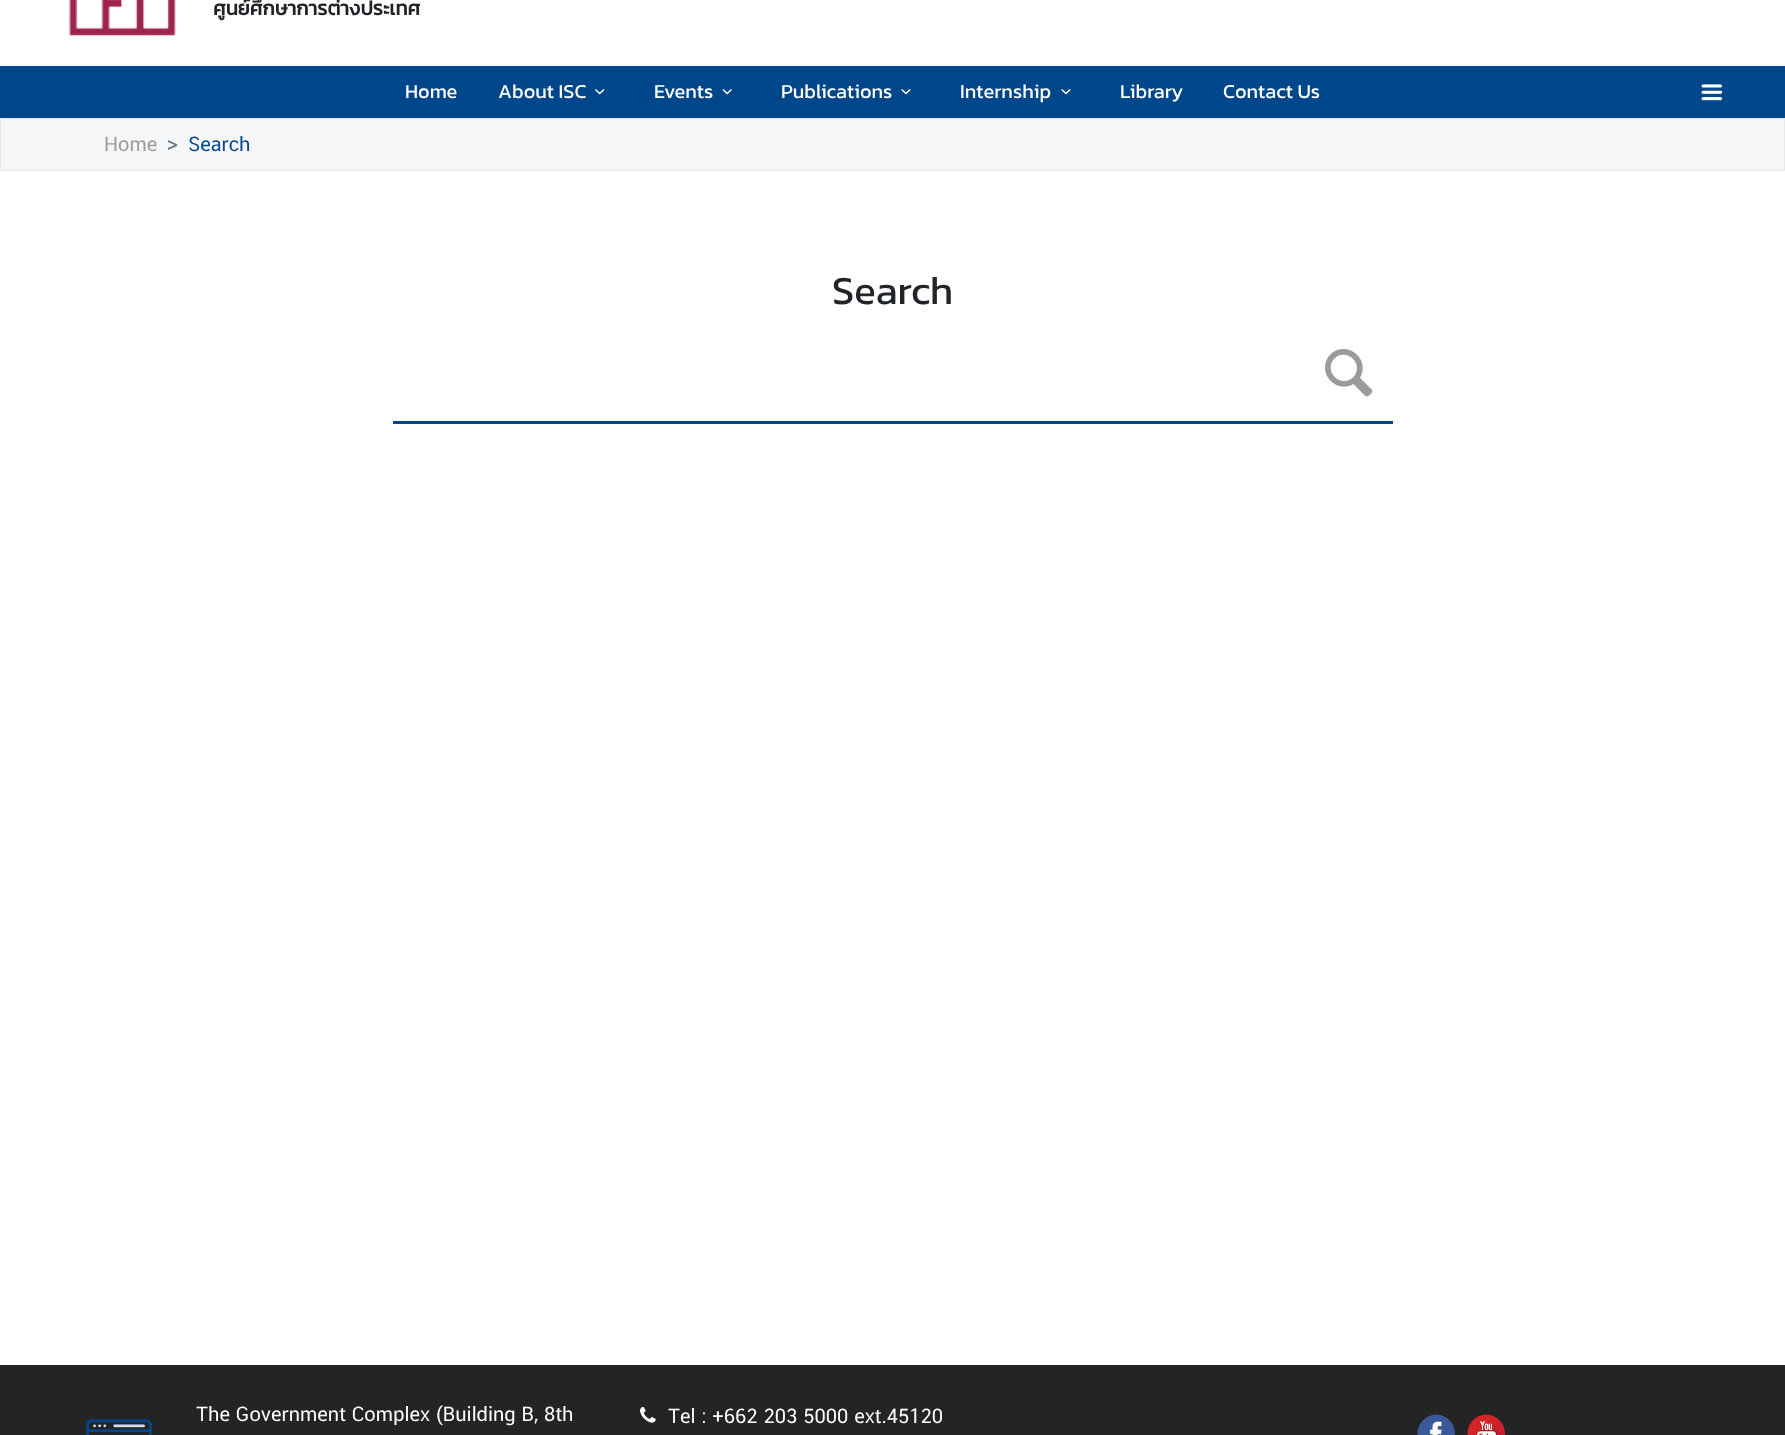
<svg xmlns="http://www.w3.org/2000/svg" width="1785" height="1435">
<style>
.a{font:bold 20px Kanit;fill:#212529}
.b{font:20px Kanit;fill:#fff}
.c{font:20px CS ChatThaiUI;fill:#9b9b9b}
.d{font:20px Kanit;fill:#6c757d}
.e{font:20px CS ChatThaiUI;fill:#00468a}
.f{font:40px Kanit;fill:#212529}
.g{font:20px CS ChatThaiUI;fill:#fff}
</style>
<rect width="100%" height="100%" fill="#fff"/>
<image href="1.png" x="69" y="0" width="107" height="36"/>
<path fill="#00468a" d="M0 66h1785v52H0z"/>
<image href="2.png" x="595" y="89" width="10" height="6"/>
<image href="3.png" x="722" y="89" width="10" height="6"/>
<image href="4.png" x="901" y="89" width="10" height="6"/>
<image href="4.png" x="1061" y="89" width="10" height="6"/>
<image href="5.png" x="1701" y="84" width="22" height="17"/>
<path fill="#f5f6f7" stroke="#e8e8e9" d="M0.5 118.5h1784v52H0.5z"/>
<image href="6.png" x="1325" y="349" width="48" height="48"/>
<path fill="#00468a" d="M393 421h1000v3H393z"/>
<path fill="#242425" d="M0 1365h1785v70H0z"/>
<image href="7.png" x="86" y="1419" width="66" height="16"/>
<image href="8.png" x="640" y="1406" width="16" height="17"/>
<image href="9.png" x="1417" y="1414" width="38" height="21"/>
<image href="10.png" x="1467" y="1414" width="39" height="21"/>
<text class="a" x="213" y="15">ศูนย์ศึกษาการต่างประเทศ</text>
<text class="b" x="405" y="98">Home</text>
<text class="b" x="498" y="98">About ISC</text>
<text class="b" x="654" y="98">Events</text>
<text class="b" x="781" y="98">Publications</text>
<text class="b" x="960" y="98">Internship</text>
<text class="b" x="1120" y="98">Library</text>
<text class="b" x="1223" y="98">Contact Us</text>
<text class="c" x="104" y="151">Home</text>
<text class="d" x="167" y="151">&gt;</text>
<text class="e" x="188" y="151">Search</text>
<text class="f" x="832" y="304">Search</text>
<text class="g" x="196" y="1421">The Government Complex (Building B, 8th</text>
<text class="g" x="668" y="1423">Tel : +662 203 5000 ext.45120</text>
</svg>
